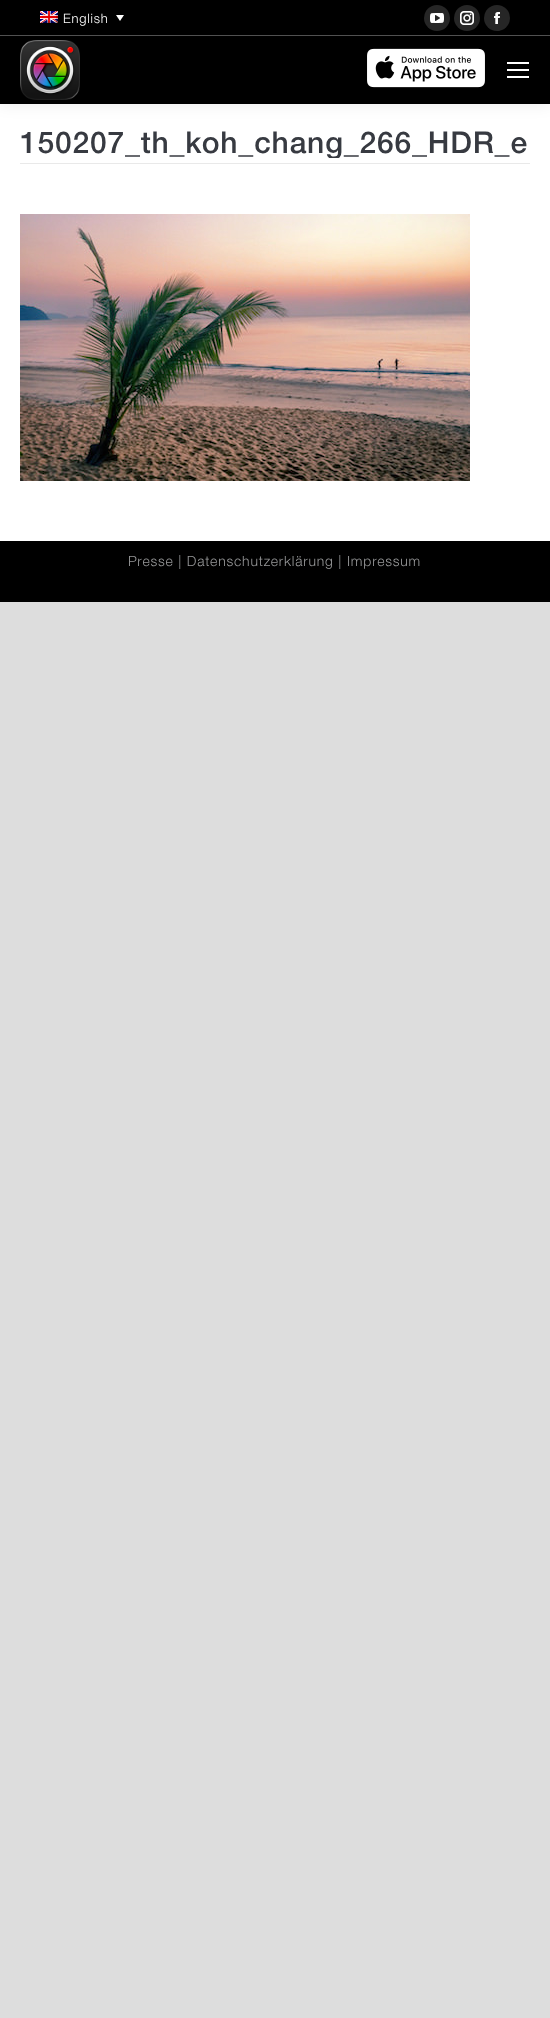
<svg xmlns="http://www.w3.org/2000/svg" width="550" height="2018">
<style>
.a{font:300 13px Helvetica;letter-spacing:0.8px;fill:#fff}
.b{font:500 30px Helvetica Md;letter-spacing:0.8px;fill:#373a41}
.c{font:300 14px Helvetica;letter-spacing:0.8px;fill:#969798}
</style>
<defs>
<clipPath id="clip1"><path d="M20 126h510v32H20z"/></clipPath>
</defs>
<rect width="100%" height="100%" fill="#ddd"/>
<path fill="#fff" d="M0 104h550v437H0z"/>
<path fill="#00000012" filter="blur(7.5px)" d="M-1 -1h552v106H-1z"/>
<path fill="#000" d="M0 0h550v104H0z"/>
<image href="1.png" x="40" y="11" width="18" height="12"/>
<path fill="#fff" d="M116 15h8l-4 6z"/>
<circle fill="#262626" cx="437" cy="18" r="13"/>
<image href="2.png" x="430" y="13" width="14" height="10"/>
<circle fill="#262626" cx="467" cy="18" r="13"/>
<image href="3.png" x="460" y="11" width="14" height="14"/>
<circle fill="#262626" cx="497" cy="18" r="13"/>
<image href="4.png" x="494" y="12" width="6" height="12"/>
<path fill="#515151" d="M0 35h550v1H0z"/>
<image href="5.png" x="20" y="40" width="60" height="60"/>
<image href="6.png" x="367" y="48" width="118" height="40"/>
<path fill="#fff" d="M507 62h22v2H507z"/>
<path fill="#fff" d="M507 69h22v2H507z"/>
<path fill="#fff" d="M507 76h22v2H507z"/>
<path fill="#e9e9e9" d="M20 163h510v1H20z"/>
<image href="7.png" x="20" y="214" width="450" height="267"/>
<path fill="#000" d="M0 541h550v61H0z"/>
<text class="a" x="63" y="23">English</text>
<g clip-path="url(#clip1)">
<text class="b" x="20" y="153">150207_th_koh_chang_266_HDR_e</text>
</g>
<text class="c" x="128" y="566">Presse | Datenschutzerklärung | Impressum</text>
</svg>
